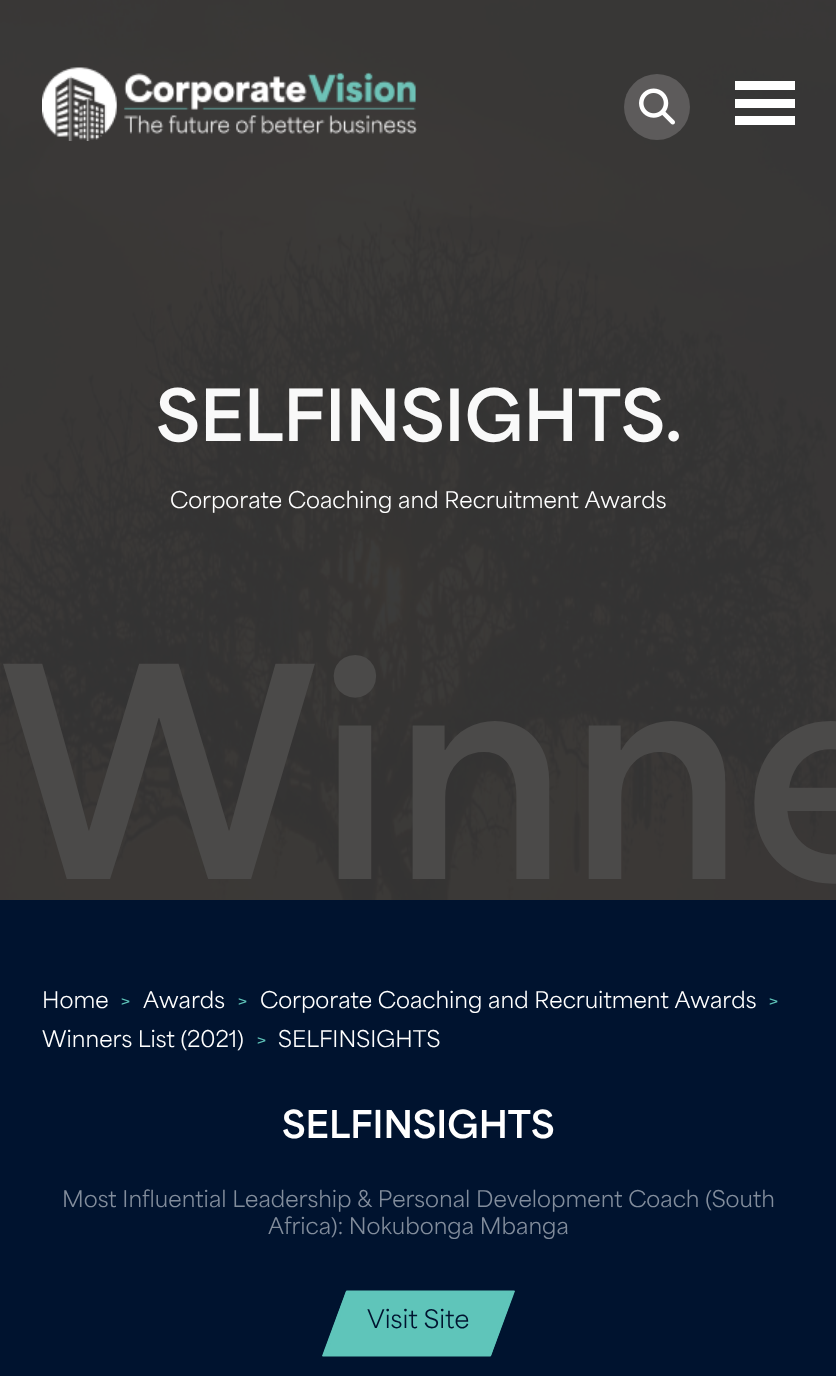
<svg xmlns="http://www.w3.org/2000/svg" width="836" height="1376">
<style>*{font-kerning:none!important;font-variant-ligatures:none!important}</style>
<style>
.a{font:bold 67.25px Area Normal;fill:#f9f9f9}
.b{font:21.6px Area Normal;fill:#fff}
.c{font:bold 276px Area Normal;fill:#4b4a49}
.d{font:21.6px Area Normal;fill:#5fc5ba}
.e{font:bold 36px Area Normal;fill:#fff}
.f{font:21.6px Area Normal;fill:#828d9c}
.g{font:24px Area Normal;fill:#00132f}
</style>
<rect width="100%" height="100%" fill="#fff"/>
<image href="3.png" x="0" y="0" width="836" height="900"/>
<path fill="#000000bf" d="M0 0h836v900H0z"/>
<image href="1.png" x="42" y="67" width="375" height="74"/>
<circle fill="#5d5b5b" cx="657" cy="107" r="33"/>
<image href="2.png" x="639" y="88" width="36" height="37"/>
<path fill="#fff" d="M735 81h60v9H735z"/>
<path fill="#fff" d="M735 99h60v9H735z"/>
<path fill="#fff" d="M735 116h60v9H735z"/>
<path fill="#00132f" d="M0 900h836v476H0z"/>
<path fill="#5fc5ba" d="M346 1291h169l-24 65h-169z"/>
<path fill="none" stroke="#5fc5ba" stroke-width="3" d="M347.5 1292h165l-23 63h-165z"/>
<text class="a" x="156" y="441">SELFINSIGHTS.</text>
<text class="b" x="170" y="508">Corporate Coaching and Recruitment Awards</text>
<text class="c" x="0" y="879">Winne</text>
<text class="b" x="42" y="1008">Home</text>
<text class="d" x="120" y="1008">&gt;</text>
<text class="b" x="143" y="1008">Awards</text>
<text class="d" x="237" y="1008">&gt;</text>
<text class="b" x="260" y="1008">Corporate Coaching and Recruitment Awards</text>
<text class="d" x="768" y="1008">&gt;</text>
<text class="b" x="42" y="1047">Winners List (2021)</text>
<text class="d" x="256" y="1047">&gt;</text>
<text class="b" x="278" y="1047">SELFINSIGHTS</text>
<text class="e" x="282" y="1138">SELFINSIGHTS</text>
<text class="f" x="62" y="1207">Most Influential Leadership &amp; Personal Development Coach (South</text>
<text class="f" x="268" y="1234">Africa): Nokubonga Mbanga</text>
<text class="g" x="367" y="1328">Visit Site</text>
</svg>
